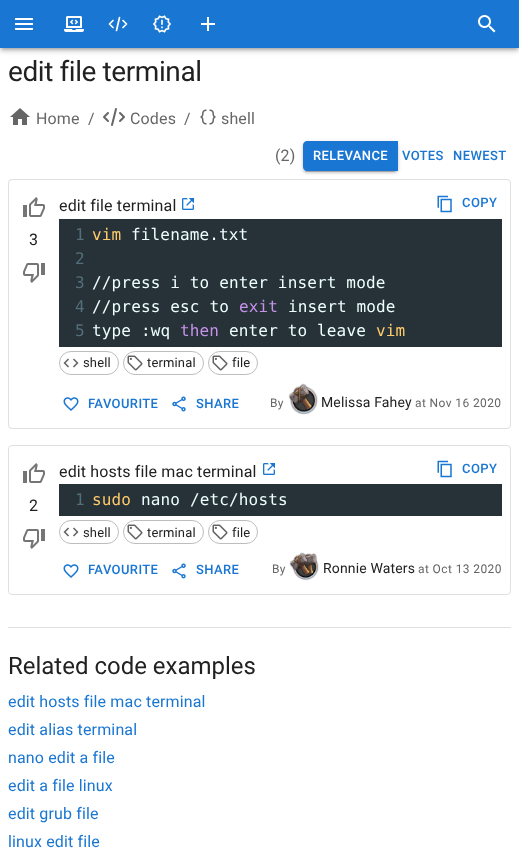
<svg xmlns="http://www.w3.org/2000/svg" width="519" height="852">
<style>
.a{font:28px Roboto;letter-spacing:-0.4px;fill:#212121}
.b{font:16px Roboto;letter-spacing:0.15px;fill:#666}
.c{font:500 13px Roboto;letter-spacing:0.4px;fill:#fff}
.d{font:500 13px Roboto;letter-spacing:0.4px;fill:#1976d2}
.e{font:16px Roboto;letter-spacing:0.15px;fill:#212121}
.f{font:16px DejaVu Sans Mono;letter-spacing:0.15px;fill:#546e7a}
.g{font:16px DejaVu Sans Mono;letter-spacing:0.15px;fill:#ffcb6b}
.h{font:16px DejaVu Sans Mono;letter-spacing:0.15px;fill:#eff}
.i{font:16px DejaVu Sans Mono;letter-spacing:0.15px;fill:#c792ea}
.j{font:13px Roboto;letter-spacing:0.15px;fill:#212121}
.k{font:12px Roboto;letter-spacing:0.4px;fill:#666}
.l{font:14px Roboto;letter-spacing:0.15px;fill:#212121}
.m{font:24px Roboto;fill:#212121}
.n{font:16px Roboto;letter-spacing:0.15px;fill:#1976d2}
</style>
<rect width="100%" height="100%" fill="#fff"/>
<path fill="#0000001f" filter="blur(4px)" d="M0 1h519v48H0z"/>
<path fill="#00000024" filter="blur(2px)" d="M0 3h519v48H0z"/>
<path fill="#00000033" filter="blur(1.5px)" d="M2 5h515v44H2z"/>
<path fill="#1976d2" d="M0 0h519v48H0z"/>
<image href="1.png" x="15" y="18" width="18" height="12"/>
<image href="2.png" x="64" y="16" width="20" height="16"/>
<path fill="none" stroke="#fff" stroke-width="1.7" stroke-linecap="round" stroke-linejoin="round" d="M116.5 30.5l3-13m3.5 3l3.5 3.5l-3.5 3.5m-10 0l-3.5-3.5l3.5-3.5"/>
<image href="3.png" x="153" y="15" width="18" height="18"/>
<image href="4.png" x="201" y="17" width="14" height="14"/>
<image href="5.png" x="478" y="15" width="18" height="18"/>
<image href="6.png" x="10" y="108" width="20" height="17"/>
<path fill="none" stroke="#666" stroke-width="2" stroke-linecap="round" stroke-linejoin="round" d="M112 125l4-16m4 4l4 4l-4 4m-12 0l-4-4l4-4"/>
<image href="7.png" x="200" y="109" width="16" height="16"/>
<rect fill="none" stroke="#e0e0e0" x="8.5" y="179.5" width="502" height="249" rx="3.5"/>
<rect fill="#0000001f" filter="blur(2.5px)" x="303" y="142" width="95" height="30" rx="4"/>
<rect fill="#00000024" filter="blur(1px)" x="303" y="143" width="95" height="30" rx="4"/>
<rect fill="#00000033" filter="blur(0.5px)" x="305" y="146" width="91" height="26" rx="2"/>
<path fill="#1976d2" d="M307 141h91v30h-91c-2 0-4-2-4-4v-22c0-2 2-4 4-4z"/>
<image href="8.png" x="23" y="197" width="22" height="20"/>
<image href="9.png" x="23" y="263" width="22" height="20"/>
<image href="10.png" x="182" y="198" width="12" height="12"/>
<image href="11.png" x="437" y="195" width="15" height="18"/>
<path fill="#263238" d="M59 219h443v128H59z"/>
<rect fill="none" stroke="#bdbdbd" x="59.5" y="351.5" width="59" height="23" rx="11.5"/>
<image href="12.png" x="63" y="358" width="16" height="10"/>
<rect fill="none" stroke="#bdbdbd" x="123.5" y="351.5" width="80" height="23" rx="11.5"/>
<image href="13.png" x="127" y="355" width="16" height="16"/>
<rect fill="none" stroke="#bdbdbd" x="208.5" y="351.5" width="49" height="23" rx="11.5"/>
<image href="13.png" x="212" y="355" width="16" height="16"/>
<image href="14.png" x="63" y="397" width="16" height="14"/>
<image href="15.png" x="172" y="396" width="14" height="16"/>
<image href="16.png" x="288" y="383" width="30" height="32"/>
<rect fill="none" stroke="#e0e0e0" x="8.5" y="445.5" width="502" height="149" rx="3.5"/>
<image href="8.png" x="23" y="463" width="22" height="20"/>
<image href="9.png" x="23" y="529" width="22" height="20"/>
<image href="10.png" x="263" y="463" width="12" height="12"/>
<image href="11.png" x="437" y="460" width="15" height="18"/>
<path fill="#263238" d="M59 484h443v32H59z"/>
<rect fill="none" stroke="#bdbdbd" x="59.5" y="520.5" width="59" height="23" rx="11.5"/>
<image href="12.png" x="63" y="527" width="16" height="10"/>
<rect fill="none" stroke="#bdbdbd" x="123.5" y="520.5" width="80" height="23" rx="11.5"/>
<image href="13.png" x="127" y="524" width="16" height="16"/>
<rect fill="none" stroke="#bdbdbd" x="208.5" y="520.5" width="49" height="23" rx="11.5"/>
<image href="13.png" x="212" y="524" width="16" height="16"/>
<image href="14.png" x="63" y="564" width="16" height="14"/>
<image href="15.png" x="172" y="563" width="14" height="16"/>
<image href="17.png" x="289" y="552" width="30" height="29"/>
<path fill="#e0e0e0" d="M8 627h503v1H8z"/>
<text class="a" x="8" y="81">edit file terminal</text>
<text class="b" x="36" y="124">Home</text>
<text class="b" x="88" y="124">/</text>
<text class="b" x="130" y="124">Codes</text>
<text class="b" x="184" y="124">/</text>
<text class="b" x="221" y="124">shell</text>
<text class="b" x="275" y="161">(2)</text>
<text class="c" x="313" y="160">RELEVANCE</text>
<text class="d" x="402" y="160">VOTES</text>
<text class="d" x="453" y="160">NEWEST</text>
<text class="e" x="29" y="245">3</text>
<text class="e" x="59" y="211">edit file terminal</text>
<text class="d" x="462" y="207">COPY</text>
<text class="f" x="75" y="240">1</text>
<text class="g" x="92" y="240">vim</text>
<text class="h" x="131" y="240">filename.txt</text>
<text class="f" x="75" y="264">2</text>
<text class="f" x="75" y="288">3</text>
<text class="h" x="92" y="288">//press i to enter insert mode</text>
<text class="f" x="75" y="312">4</text>
<text class="h" x="92" y="312">//press esc to</text>
<text class="i" x="239" y="312">exit</text>
<text class="h" x="288" y="312">insert mode</text>
<text class="f" x="75" y="336">5</text>
<text class="h" x="92" y="336">type :wq</text>
<text class="i" x="180" y="336">then</text>
<text class="h" x="229" y="336">enter to leave</text>
<text class="g" x="376" y="336">vim</text>
<text class="j" x="83" y="367">shell</text>
<text class="j" x="147" y="367">terminal</text>
<text class="j" x="232" y="367">file</text>
<text class="d" x="88" y="408">FAVOURITE</text>
<text class="d" x="196" y="408">SHARE</text>
<text class="k" x="270" y="407">By</text>
<text class="l" x="321" y="407">Melissa Fahey</text>
<text class="k" x="415" y="407">at Nov 16 2020</text>
<text class="e" x="29" y="511">2</text>
<text class="e" x="59" y="477">edit hosts file mac terminal</text>
<text class="d" x="462" y="473">COPY</text>
<text class="f" x="75" y="505">1</text>
<text class="g" x="92" y="505">sudo</text>
<text class="h" x="141" y="505">nano /etc/hosts</text>
<text class="j" x="83" y="537">shell</text>
<text class="j" x="147" y="537">terminal</text>
<text class="j" x="232" y="537">file</text>
<text class="d" x="88" y="574">FAVOURITE</text>
<text class="d" x="196" y="574">SHARE</text>
<text class="k" x="272" y="573">By</text>
<text class="l" x="323" y="573">Ronnie Waters</text>
<text class="k" x="418" y="573">at Oct 13 2020</text>
<text class="m" x="8" y="674">Related code examples</text>
<text class="n" x="8" y="707">edit hosts file mac terminal</text>
<text class="n" x="8" y="735">edit alias terminal</text>
<text class="n" x="8" y="763">nano edit a file</text>
<text class="n" x="8" y="791">edit a file linux</text>
<text class="n" x="8" y="819">edit grub file</text>
<text class="n" x="8" y="847">linux edit file</text>
</svg>
